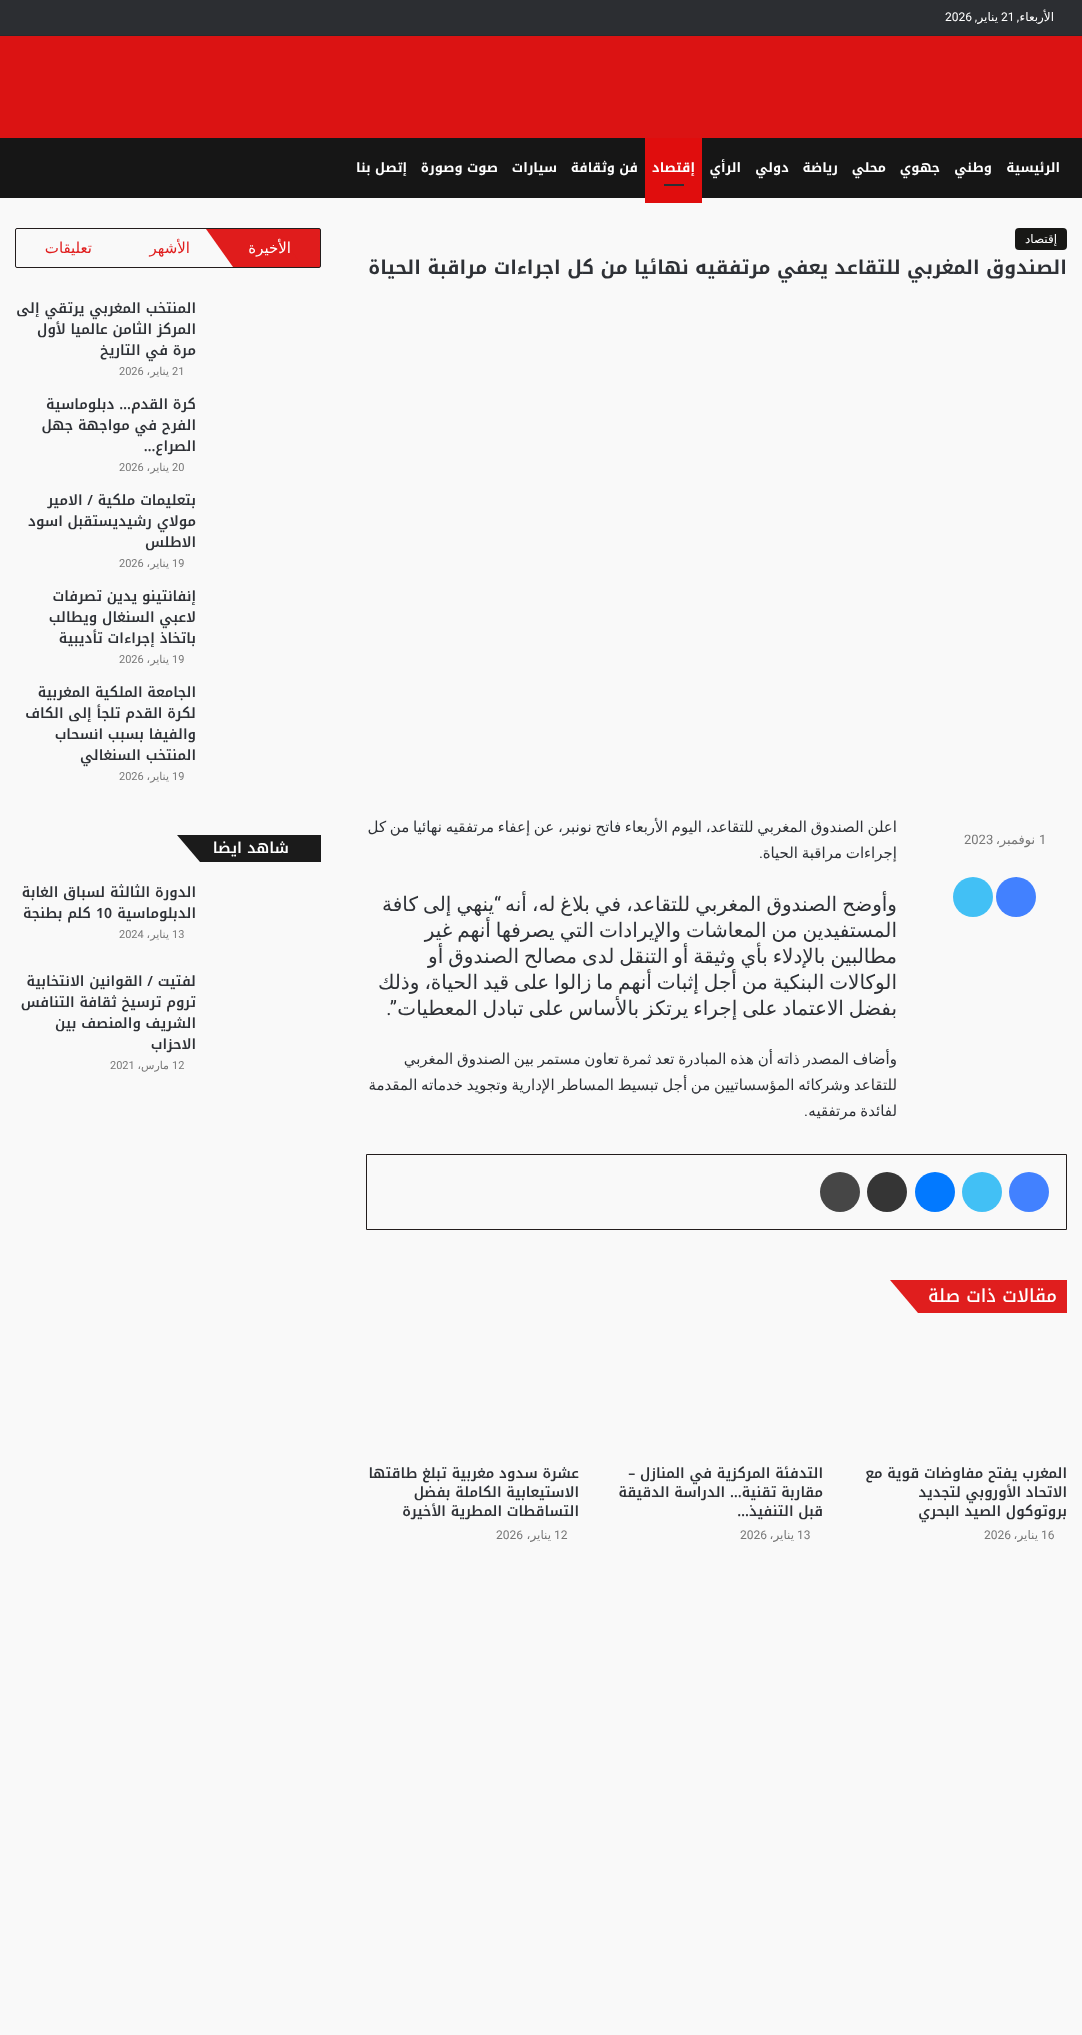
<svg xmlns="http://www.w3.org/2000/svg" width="1082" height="2035">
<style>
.a{font:12px DejaVu Sans;direction:rtl;fill:#fff}
.b{font:12px Roboto;direction:rtl;fill:#fff}
.c{font:12px Roboto;fill:#fff}
.d{font:bold 13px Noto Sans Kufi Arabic;direction:rtl;fill:#fff}
.e{font:bold 19px Noto Kufi Arabic;direction:rtl;fill:#2e3136}
.f{font:13px Roboto;fill:#777}
.g{font:13px DejaVu Sans;direction:rtl;fill:#777}
.h{font:15px DejaVu Sans;direction:rtl;fill:#2e3136}
.i{font:15px Roboto;direction:rtl;fill:#2e3136}
.j{font:20px DejaVu Sans;direction:rtl;fill:#2e3136}
.k{font:20px Roboto;direction:rtl;fill:#2e3136}
.l{font:500 18px Noto Kufi Arabic;direction:rtl;fill:#fff}
.m{font:600 14px Noto Kufi Arabic;direction:rtl;fill:#2e3136}
.n{font:12px Roboto;fill:#777}
.o{font:12px DejaVu Sans;direction:rtl;fill:#777}
.p{font:15px DejaVu Sans;direction:rtl;fill:#fff}
.q{font:15px DejaVu Sans;direction:rtl;fill:#e01c1c}
.r{font:11px Roboto;fill:#777}
.s{font:11px DejaVu Sans;direction:rtl;fill:#777}
.t{font:600 15px Noto Kufi Arabic;direction:rtl;fill:#fff}
.u{font:600 14px Noto Kufi Arabic;fill:#2e3136}
</style>
<rect width="100%" height="100%" fill="#f9f9f9"/>
<path fill="#db1313" d="M0 36h1082v102H0z"/>
<path fill="#2c2e32" d="M0 0h1082v35H0z"/>
<path fill="#28292d" d="M0 35h1082v1H0z"/>
<path fill="#161616" d="M0 138h1082v60H0z"/>
<path fill="#e00d0d" d="M645 138h57v65H645z"/>
<path fill="#2c2f34" d="M664 184h20v2H664z"/>
<rect fill="#181816" x="1015" y="228" width="52" height="22" rx="4"/>
<circle fill="#4281ff" cx="1016" cy="897" r="20"/>
<circle fill="#42c0f5" cx="973" cy="897" r="20"/>
<path fill="none" stroke="#231d1d" d="M366.5 1154.5h700v75H366.5z"/>
<circle fill="#4281ff" cx="1029" cy="1192" r="20"/>
<circle fill="#42c0f5" cx="982" cy="1192" r="20"/>
<circle fill="#0279ff" cx="935" cy="1192" r="20"/>
<circle fill="#353535" cx="887" cy="1192" r="20"/>
<circle fill="#464646" cx="840" cy="1192" r="20"/>
<path fill="#e01e1e" d="M994 1280h73v33H994z"/>
<path fill="#e01e1e" d="M890 1280h104l28 33h-104z"/>
<path fill="#e01c1c" d="M276 229h44v38H276z"/>
<path fill="#e01c1c" d="M206 229h70l27 38h-70z"/>
<rect fill="none" stroke="#231d1d" x="15.5" y="228.5" width="305" height="39" rx="1.5"/>
<path fill="#1b1b1b" d="M260 835h61v27H260z"/>
<path fill="#1b1b1b" d="M177 835h83l23 27h-83z"/>
<text class="a" x="1054" y="21">الأربعاء</text>
<text class="b" x="1019" y="21">,</text>
<text class="c" x="1001" y="21">21</text>
<text class="b" x="977" y="21">,</text>
<text class="a" x="998" y="21">يناير</text>
<text class="c" x="945" y="21">2026</text>
<text class="d" x="1060" y="172">الرئيسية</text>
<text class="d" x="992" y="172">وطني</text>
<text class="d" x="940" y="172">جهوي</text>
<text class="d" x="886" y="172">محلي</text>
<text class="d" x="838" y="172">رياضة</text>
<text class="d" x="789" y="172">دولي</text>
<text class="d" x="741" y="172">الرأي</text>
<text class="d" x="695" y="172">إقتصاد</text>
<text class="d" x="638" y="172">فن وثقافة</text>
<text class="d" x="557" y="172">سيارات</text>
<text class="d" x="498" y="172">صوت وصورة</text>
<text class="d" x="407" y="172">إتصل بنا</text>
<text class="a" x="1057" y="243">إقتصاد</text>
<text class="e" x="1067" y="274">الصندوق المغربي للتقاعد يعفي مرتفقيه نهائيا من كل اجراءات مراقبة الحياة</text>
<text class="f" x="1039" y="844">1</text>
<text class="g" x="1035" y="844">نوفمبر،</text>
<text class="f" x="964" y="844">2023</text>
<text class="h" x="897" y="832" word-spacing="-1">اعلن الصندوق المغربي للتقاعد، اليوم الأربعاء فاتح نونبر، عن إعفاء مرتفقيه نهائيا من كل</text>
<text class="h" x="897" y="858" word-spacing="-1">إجراءات مراقبة الحياة</text>
<text class="i" x="763" y="858">.</text>
<text class="j" x="897" y="911" word-spacing="-1.25">وأوضح الصندوق المغربي للتقاعد، في بلاغ له، أنه</text>
<text class="k" x="501" y="911">“</text>
<text class="j" x="494" y="911" word-spacing="-1.25">ينهي إلى كافة</text>
<text class="j" x="897" y="937" word-spacing="-1.4">المستفيدين من المعاشات والإيرادات التي يصرفها أنهم غير</text>
<text class="j" x="897" y="963" word-spacing="-1.4">مطالبين بالإدلاء بأي وثيقة أو التنقل لدى مصالح الصندوق أو</text>
<text class="j" x="897" y="989" word-spacing="-1.4">الوكالات البنكية من أجل إثبات أنهم ما زالوا على قيد الحياة، وذلك</text>
<text class="j" x="897" y="1015" word-spacing="-1.4">بفضل الاعتماد على إجراء يرتكز بالأساس على تبادل المعطيات</text>
<text class="k" x="397" y="1015">”.</text>
<text class="h" x="897" y="1064" word-spacing="-1">وأضاف المصدر ذاته أن هذه المبادرة تعد ثمرة تعاون مستمر بين الصندوق المغربي</text>
<text class="h" x="897" y="1090" word-spacing="-1">للتقاعد وشركائه المؤسساتيين من أجل تبسيط المساطر الإدارية وتجويد خدماته المقدمة</text>
<text class="h" x="897" y="1116" word-spacing="-1">لفائدة مرتفقيه</text>
<text class="i" x="808" y="1116">.</text>
<text class="l" x="1057" y="1302">مقالات ذات صلة</text>
<text class="m" x="1067" y="1478">المغرب يفتح مفاوضات قوية مع</text>
<text class="m" x="1067" y="1497">الاتحاد الأوروبي لتجديد</text>
<text class="m" x="1067" y="1516">بروتوكول الصيد البحري</text>
<text class="n" x="1041" y="1539">16</text>
<text class="o" x="1038" y="1539">يناير،</text>
<text class="n" x="984" y="1539">2026</text>
<text class="m" x="823" y="1478">التدفئة المركزية في المنازل –</text>
<text class="m" x="823" y="1497">مقاربة تقنية… الدراسة الدقيقة</text>
<text class="m" x="823" y="1516">قبل التنفيذ…</text>
<text class="n" x="797" y="1539">13</text>
<text class="o" x="794" y="1539">يناير،</text>
<text class="n" x="740" y="1539">2026</text>
<text class="m" x="579" y="1478">عشرة سدود مغربية تبلغ طاقتها</text>
<text class="m" x="579" y="1497">الاستيعابية الكاملة بفضل</text>
<text class="m" x="579" y="1516">التساقطات المطرية الأخيرة</text>
<text class="n" x="554" y="1539">12</text>
<text class="o" x="551" y="1539">يناير،</text>
<text class="n" x="496" y="1539">2026</text>
<text class="p" x="291" y="253">الأخيرة</text>
<text class="q" x="190" y="253">الأشهر</text>
<text class="q" x="92" y="253">تعليقات</text>
<text class="m" x="196" y="313">المنتخب المغربي يرتقي إلى</text>
<text class="m" x="196" y="334">المركز الثامن عالميا لأول</text>
<text class="m" x="196" y="355">مرة في التاريخ</text>
<text class="r" x="172" y="375">21</text>
<text class="s" x="169" y="375">يناير،</text>
<text class="r" x="119" y="375">2026</text>
<text class="m" x="196" y="409">كرة القدم… دبلوماسية</text>
<text class="m" x="196" y="430">الفرح في مواجهة جهل</text>
<text class="m" x="196" y="451">الصراع…</text>
<text class="r" x="172" y="471">20</text>
<text class="s" x="169" y="471">يناير،</text>
<text class="r" x="119" y="471">2026</text>
<text class="m" x="196" y="505">بتعليمات ملكية / الامير</text>
<text class="m" x="196" y="526">مولاي رشيديستقبل اسود</text>
<text class="m" x="196" y="547">الاطلس</text>
<text class="r" x="172" y="567">19</text>
<text class="s" x="169" y="567">يناير،</text>
<text class="r" x="119" y="567">2026</text>
<text class="m" x="196" y="601">إنفانتينو يدين تصرفات</text>
<text class="m" x="196" y="622">لاعبي السنغال ويطالب</text>
<text class="m" x="196" y="643">باتخاذ إجراءات تأديبية</text>
<text class="r" x="172" y="663">19</text>
<text class="s" x="169" y="663">يناير،</text>
<text class="r" x="119" y="663">2026</text>
<text class="m" x="196" y="697">الجامعة الملكية المغربية</text>
<text class="m" x="196" y="718">لكرة القدم تلجأ إلى الكاف</text>
<text class="m" x="196" y="739">والفيفا بسبب انسحاب</text>
<text class="m" x="196" y="760">المنتخب السنغالي</text>
<text class="r" x="172" y="780">19</text>
<text class="s" x="169" y="780">يناير،</text>
<text class="r" x="119" y="780">2026</text>
<text class="t" x="289" y="853">شاهد ايضا</text>
<text class="m" x="196" y="897">الدورة الثالثة لسباق الغابة</text>
<text class="m" x="196" y="918">الدبلوماسية</text>
<text class="u" x="96" y="918">10</text>
<text class="m" x="91" y="918">كلم بطنجة</text>
<text class="r" x="172" y="938">13</text>
<text class="s" x="169" y="938">يناير،</text>
<text class="r" x="119" y="938">2024</text>
<text class="m" x="196" y="986">لفتيت / القوانين الانتخابية</text>
<text class="m" x="196" y="1007">تروم ترسيخ ثقافة التنافس</text>
<text class="m" x="196" y="1028">الشريف والمنصف بين</text>
<text class="m" x="196" y="1049">الاحزاب</text>
<text class="r" x="172" y="1069">12</text>
<text class="s" x="169" y="1069">مارس،</text>
<text class="r" x="110" y="1069">2021</text>
</svg>
